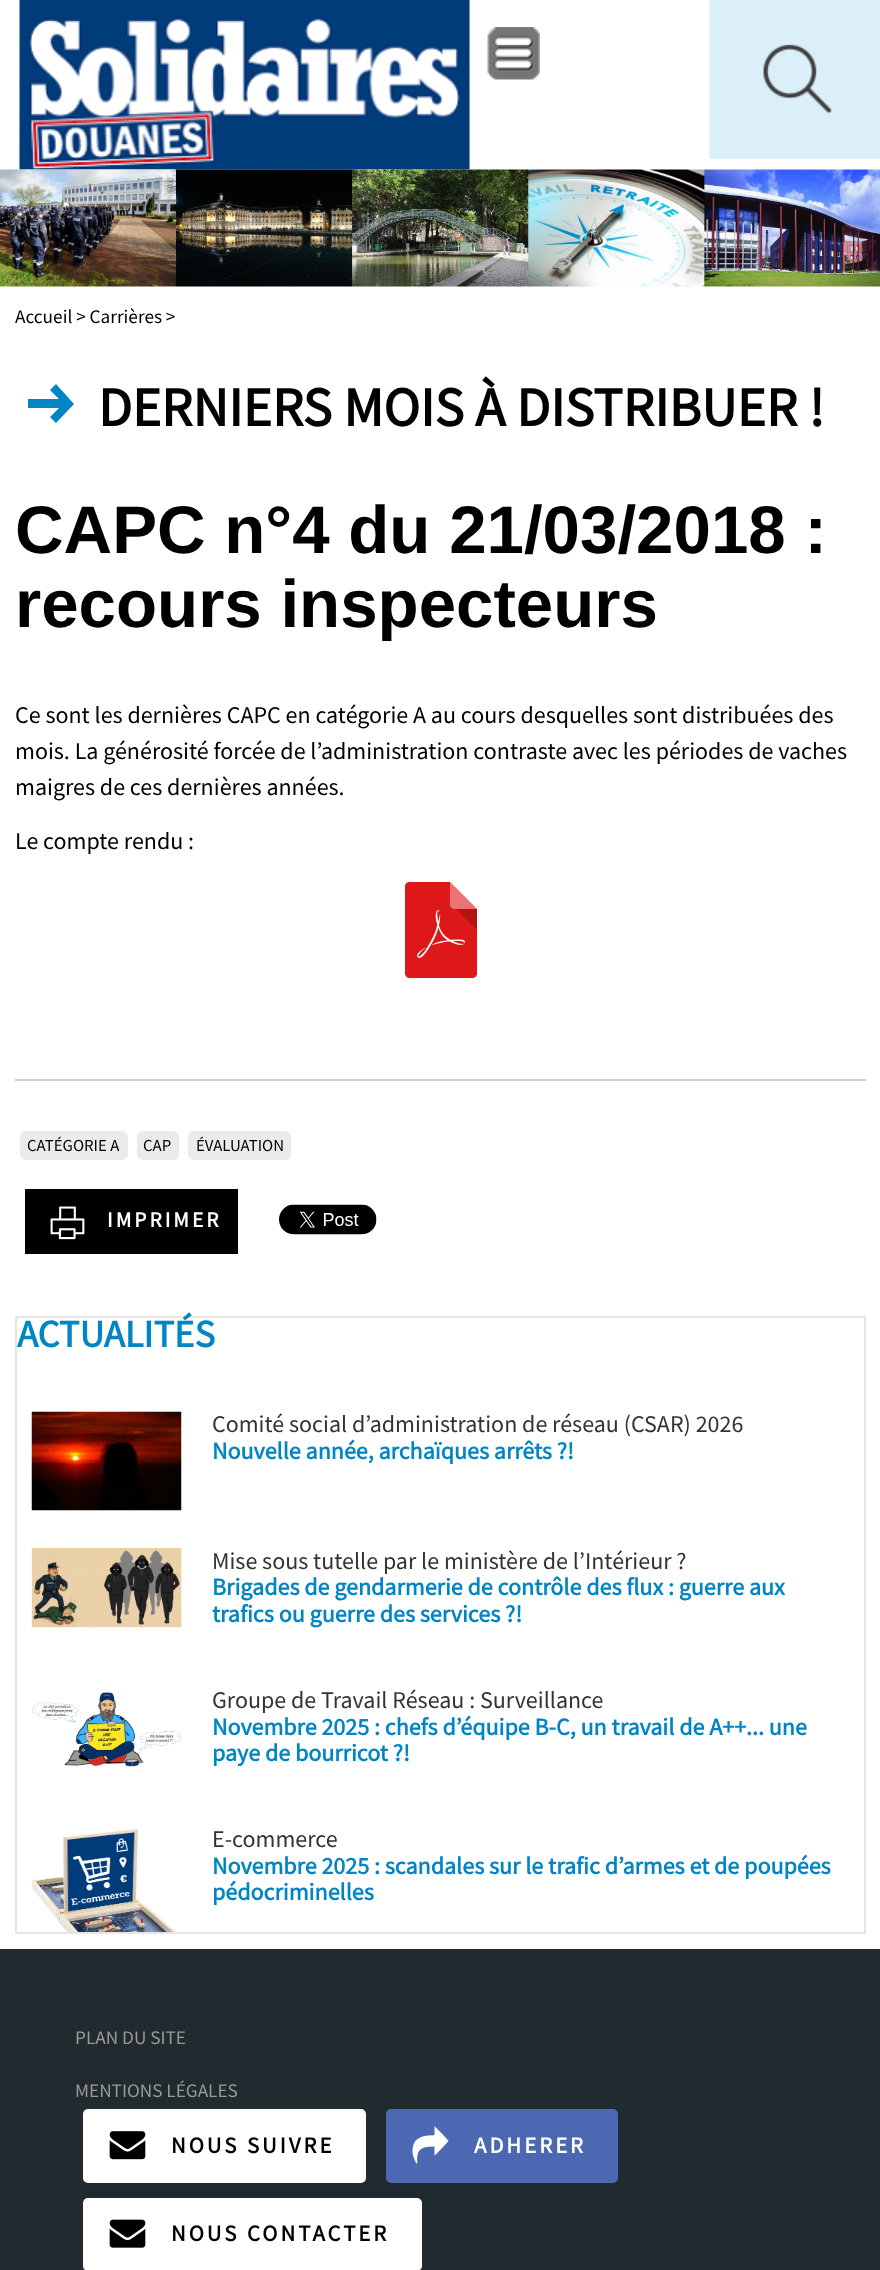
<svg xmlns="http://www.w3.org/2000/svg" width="880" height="2270">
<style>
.a{font:19.25px Source Sans Pro;fill:#000}
.b{font:bold 55.25px Source Sans Pro;fill:#000}
.c{font:bold 67.25px Liberation Sans;fill:#000}
.d{font:24px Source Sans Pro;fill:#000}
.e{font:16.75px Source Sans Pro;fill:#000}
.f{font:bold 21.5px Source Sans Pro;letter-spacing:3px;fill:#fff}
.g{font:bold 38.5px Source Sans Pro;fill:#0185c4}
.h{font:24px Source Sans Pro;fill:#333}
.i{font:bold 24px Source Sans Pro;fill:#0185c4}
.j{font:19.25px Source Sans Pro;fill:#999}
.k{font:bold 22.75px Source Sans Pro;letter-spacing:3px;fill:#000}
.l{font:bold 22.75px Source Sans Pro;letter-spacing:3px;fill:#fff}
</style>
<rect width="100%" height="100%" fill="#fff"/>
<image href="1.png" x="19" y="0" width="451" height="170"/>
<image href="2.png" x="487" y="27" width="53" height="53"/>
<image href="3.png" x="709" y="0" width="171" height="159"/>
<image href="4.png" x="0" y="169" width="880" height="118"/>
<path fill="#0185c4" d="M56 384l-6 6l9 9h-31v9h31l-9 9l6 6l18-19z"/>
<image href="5.png" x="405" y="882" width="72" height="96"/>
<path fill="#ccc" d="M15 1079h851v2H15z"/>
<rect fill="#ebebe9" x="20" y="1131" width="108" height="29" rx="6"/>
<rect fill="#ebebe9" x="137" y="1131" width="42" height="29" rx="6"/>
<rect fill="#ebebe9" x="188" y="1131" width="103" height="29" rx="6"/>
<path fill="#000" d="M25 1189h213v65H25z"/>
<image href="6.png" x="50" y="1206" width="35" height="34"/>
<image href="7.png" x="279" y="1204" width="98" height="31"/>
<path fill="none" stroke="#e6e6e4" stroke-width="2" d="M16 1317h849v616H16z"/>
<image href="8.png" x="31" y="1411" width="151" height="100"/>
<image href="9.png" x="31" y="1548" width="151" height="80"/>
<image href="10.png" x="31" y="1692" width="151" height="75"/>
<image href="11.png" x="31" y="1828" width="146" height="104"/>
<path fill="#212a2e" d="M0 1949h880v321H0z"/>
<rect fill="#fff" stroke="#fff" stroke-width="2" x="84" y="2110" width="281" height="72" rx="4"/>
<image href="12.png" x="109" y="2131" width="37" height="29"/>
<rect fill="#4c68b3" stroke="#4c68b3" stroke-width="2" x="387" y="2110" width="230" height="72" rx="4"/>
<image href="13.png" x="412" y="2126" width="37" height="38"/>
<rect fill="#fff" stroke="#fff" stroke-width="2" x="84" y="2199" width="337" height="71" rx="4"/>
<image href="14.png" x="109" y="2219" width="37" height="29"/>
<text class="a" x="15" y="323">Accueil &gt; Carrières &gt;</text>
<text class="b" x="98" y="426">DERNIERS MOIS À DISTRIBUER !</text>
<text class="c" x="15" y="553">CAPC n°4 du 21/03/2018 :</text>
<text class="c" x="15" y="627">recours inspecteurs</text>
<text class="d" x="15" y="723">Ce sont les dernières CAPC en catégorie A au cours desquelles sont distribuées des</text>
<text class="d" x="15" y="759">mois. La générosité forcée de l’administration contraste avec les périodes de vaches</text>
<text class="d" x="15" y="795">maigres de ces dernières années.</text>
<text class="d" x="15" y="849">Le compte rendu :</text>
<text class="e" x="27" y="1151">CATÉGORIE A</text>
<text class="e" x="143" y="1151">CAP</text>
<text class="e" x="196" y="1151">ÉVALUATION</text>
<text class="f" x="107" y="1227">IMPRIMER</text>
<text class="g" x="17" y="1347">ACTUALITÉS</text>
<text class="h" x="212" y="1432">Comité social d’administration de réseau (CSAR) 2026</text>
<text class="i" x="212" y="1459">Nouvelle année, archaïques arrêts ?!</text>
<text class="h" x="212" y="1569">Mise sous tutelle par le ministère de l’Intérieur ?</text>
<text class="i" x="212" y="1595">Brigades de gendarmerie de contrôle des flux : guerre aux</text>
<text class="i" x="212" y="1622">trafics ou guerre des services ?!</text>
<text class="h" x="212" y="1708">Groupe de Travail Réseau : Surveillance</text>
<text class="i" x="212" y="1735">Novembre 2025 : chefs d’équipe B-C, un travail de A++... une</text>
<text class="i" x="212" y="1761">paye de bourricot ?!</text>
<text class="h" x="212" y="1847">E-commerce</text>
<text class="i" x="212" y="1874">Novembre 2025 : scandales sur le trafic d’armes et de poupées</text>
<text class="i" x="212" y="1900">pédocriminelles</text>
<text class="j" x="75" y="2044">PLAN DU SITE</text>
<text class="j" x="75" y="2097">MENTIONS LÉGALES</text>
<text class="k" x="171" y="2153">NOUS SUIVRE</text>
<text class="l" x="474" y="2153">ADHERER</text>
<text class="k" x="171" y="2241">NOUS CONTACTER</text>
</svg>
